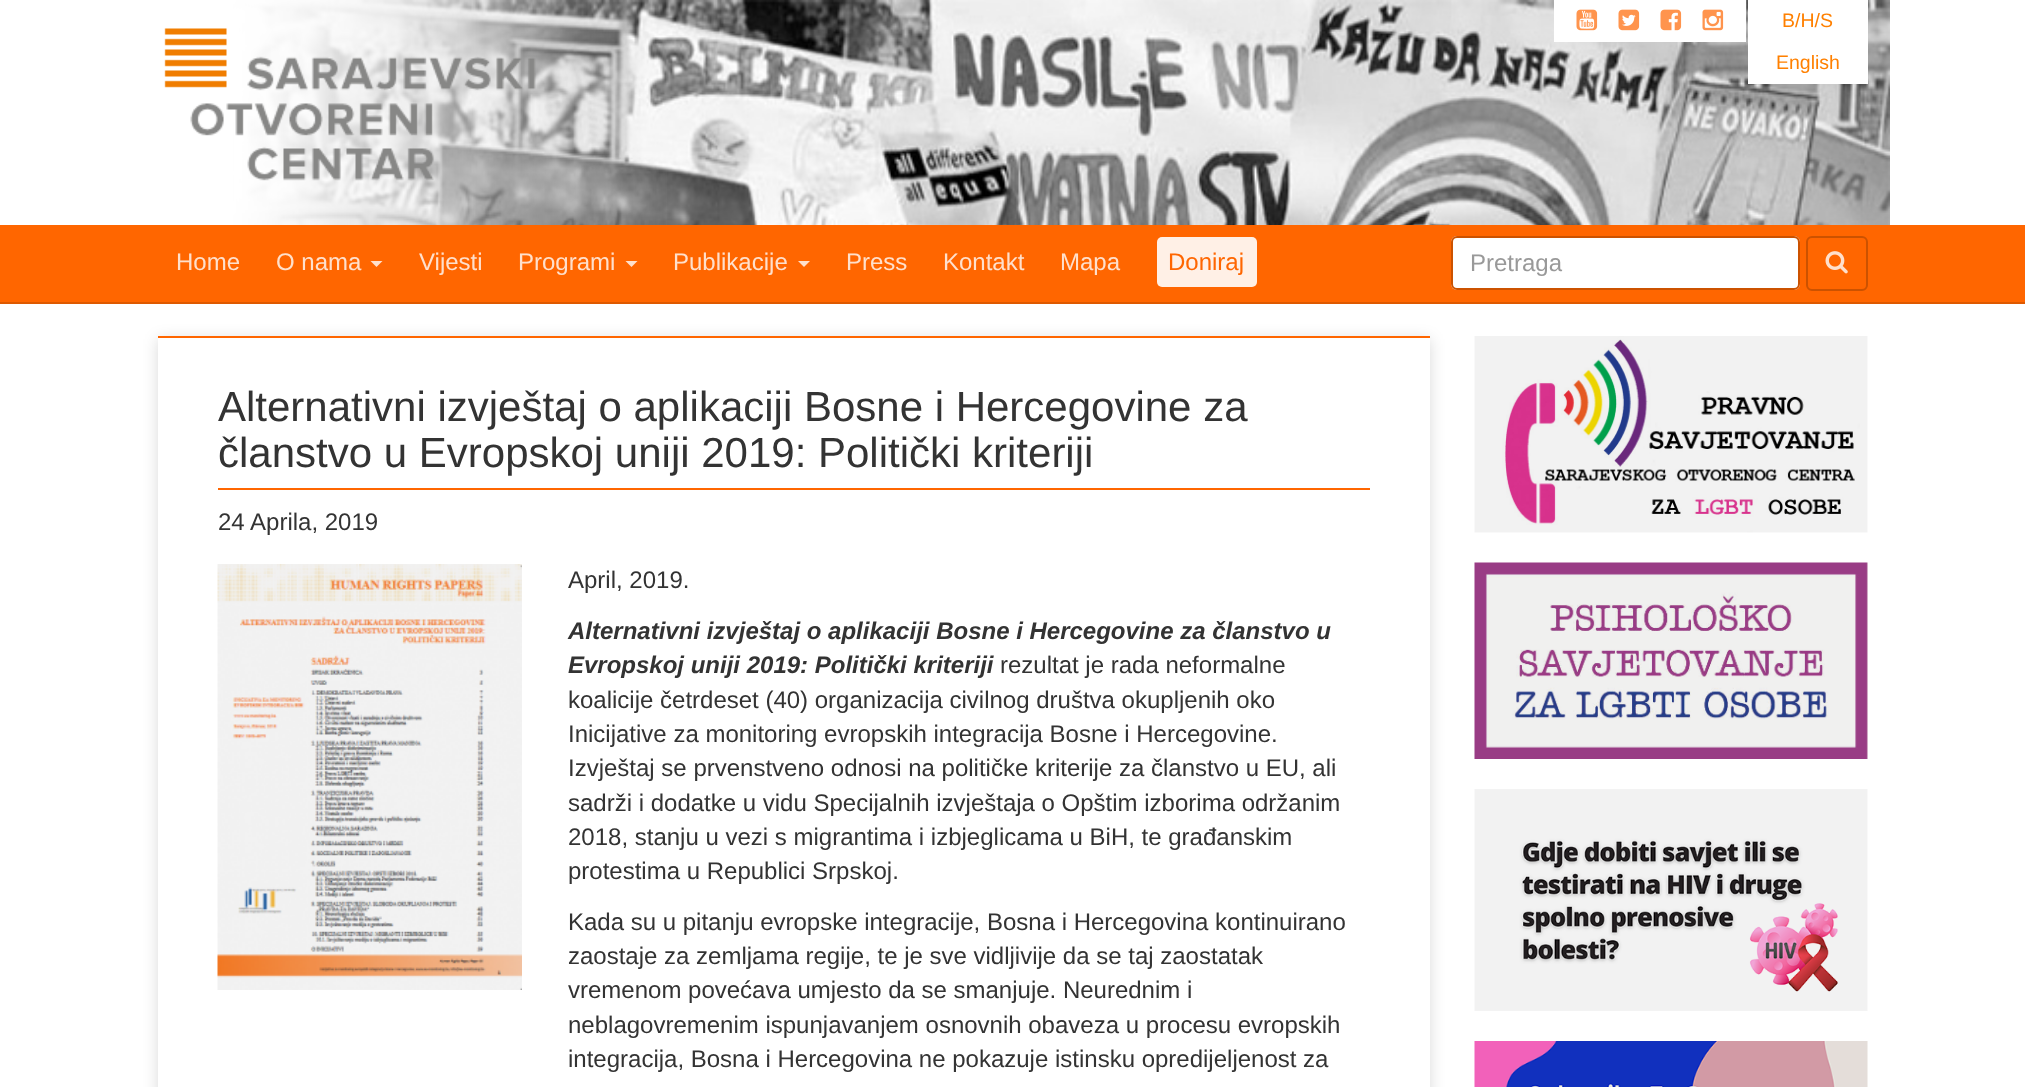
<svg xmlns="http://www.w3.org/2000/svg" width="2025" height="1087">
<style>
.a{font:19.5px Liberation Sans;fill:#ff8000}
.b{font:24px Liberation Sans;fill:#ffe0cc}
.c{font:24px Liberation Sans;fill:#f60}
.d{font:24px Liberation Sans;fill:#999}
.e{font:42px Liberation Sans;fill:#333}
.f{font:24px Liberation Sans;fill:#333}
.g{font:italic bold 24px Liberation Sans;fill:#333}
</style>
<defs>
<clipPath id="clip1"><path d="M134 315h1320v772h-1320zm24 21h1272v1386h-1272z" clip-rule="evenodd"/></clipPath>
</defs>
<rect width="100%" height="100%" fill="#fff"/>
<image href="1.png" x="233" y="0" width="1657" height="225"/>
<image href="2.png" x="135" y="0" width="532" height="225"/>
<path fill="#fff" d="M1554 0h192v42H1554z"/>
<image href="3.png" x="1576" y="9" width="22" height="22"/>
<image href="4.png" x="1618" y="9" width="22" height="22"/>
<image href="5.png" x="1660" y="9" width="22" height="22"/>
<image href="6.png" x="1702" y="9" width="22" height="22"/>
<path fill="#fff" d="M1748 0h120v84H1748z"/>
<path fill="#f60" d="M0 225h2025v77H0z"/>
<path fill="#de5900" d="M0 302h2025v2H0z"/>
<path fill="#ffe0cc" d="M370.5 261h12l-6 6z"/>
<path fill="#ffe0cc" d="M625.5 261h12l-6 6z"/>
<path fill="#ffe0cc" d="M798 261h12l-6 6z"/>
<rect fill="#fff0e6" x="1157" y="237" width="100" height="50" rx="5"/>
<rect fill="#fff" x="1451" y="236" width="349" height="54" rx="6"/>
<path fill="#ececec" d="M1456 238h338c2 0 4 3 4 5v43c1-1 1-2 1-3v-41c0-3-2-5-5-5h-337c-3 0-5 2-5 5v1c0-2 2-5 4-5z"/>
<rect fill="none" stroke="#cc5200" stroke-width="2" x="1452" y="237" width="347" height="52" rx="5"/>
<rect fill="none" stroke="#cc5200" stroke-width="2" x="1807" y="237" width="60" height="53" rx="5"/>
<image href="7.png" x="1825" y="251" width="23" height="23"/>
<g clip-path="url(#clip1)">
<path fill="#00000026" filter="blur(7.5px)" d="M158 339h1272v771H158z"/>
</g>
<path fill="#f60" d="M158 336h1272v2H158z"/>
<path fill="#f60" d="M218 488h1152v2H218z"/>
<image href="8.png" x="217" y="564" width="305" height="426"/>
<image href="9.png" x="1474" y="336" width="394" height="197"/>
<image href="10.png" x="1474" y="562" width="394" height="197"/>
<image href="11.png" x="1474" y="789" width="394" height="222"/>
<image href="12.png" x="1474" y="1041" width="394" height="46"/>
<text class="a" x="1782" y="27">B/H/S</text>
<text class="a" x="1776" y="69">English</text>
<text class="b" x="176" y="270">Home</text>
<text class="b" x="276" y="270">O nama</text>
<text class="b" x="419" y="270">Vijesti</text>
<text class="b" x="518" y="270">Programi</text>
<text class="b" x="673" y="270">Publikacije</text>
<text class="b" x="846" y="270">Press</text>
<text class="b" x="943" y="270">Kontakt</text>
<text class="b" x="1060" y="270">Mapa</text>
<text class="c" x="1168" y="270">Doniraj</text>
<text class="d" x="1470" y="271">Pretraga</text>
<text class="e" x="218" y="421">Alternativni izvještaj o aplikaciji Bosne i Hercegovine za</text>
<text class="e" x="218" y="467">članstvo u Evropskoj uniji 2019: Politički kriteriji</text>
<text class="f" x="218" y="530">24 Aprila, 2019</text>
<text class="f" x="568" y="588">April, 2019.</text>
<text class="g" x="568" y="639">Alternativni izvještaj o aplikaciji Bosne i Hercegovine za članstvo u</text>
<text class="g" x="568" y="673">Evropskoj uniji 2019: Politički kriteriji</text>
<text class="f" x="1000" y="673">rezultat je rada neformalne</text>
<text class="f" x="568" y="708">koalicije četrdeset (40) organizacija civilnog društva okupljenih oko</text>
<text class="f" x="568" y="742">Inicijative za monitoring evropskih integracija Bosne i Hercegovine.</text>
<text class="f" x="568" y="776">Izvještaj se prvenstveno odnosi na političke kriterije za članstvo u EU, ali</text>
<text class="f" x="568" y="811">sadrži i dodatke u vidu Specijalnih izvještaja o Opštim izborima održanim</text>
<text class="f" x="568" y="845">2018, stanju u vezi s migrantima i izbjeglicama u BiH, te građanskim</text>
<text class="f" x="568" y="879">protestima u Republici Srpskoj.</text>
<text class="f" x="568" y="930">Kada su u pitanju evropske integracije, Bosna i Hercegovina kontinuirano</text>
<text class="f" x="568" y="964">zaostaje za zemljama regije, te je sve vidljivije da se taj zaostatak</text>
<text class="f" x="568" y="998">vremenom povećava umjesto da se smanjuje. Neurednim i</text>
<text class="f" x="568" y="1033">neblagovremenim ispunjavanjem osnovnih obaveza u procesu evropskih</text>
<text class="f" x="568" y="1067">integracija, Bosna i Hercegovina ne pokazuje istinsku opredijeljenost za</text>
</svg>
